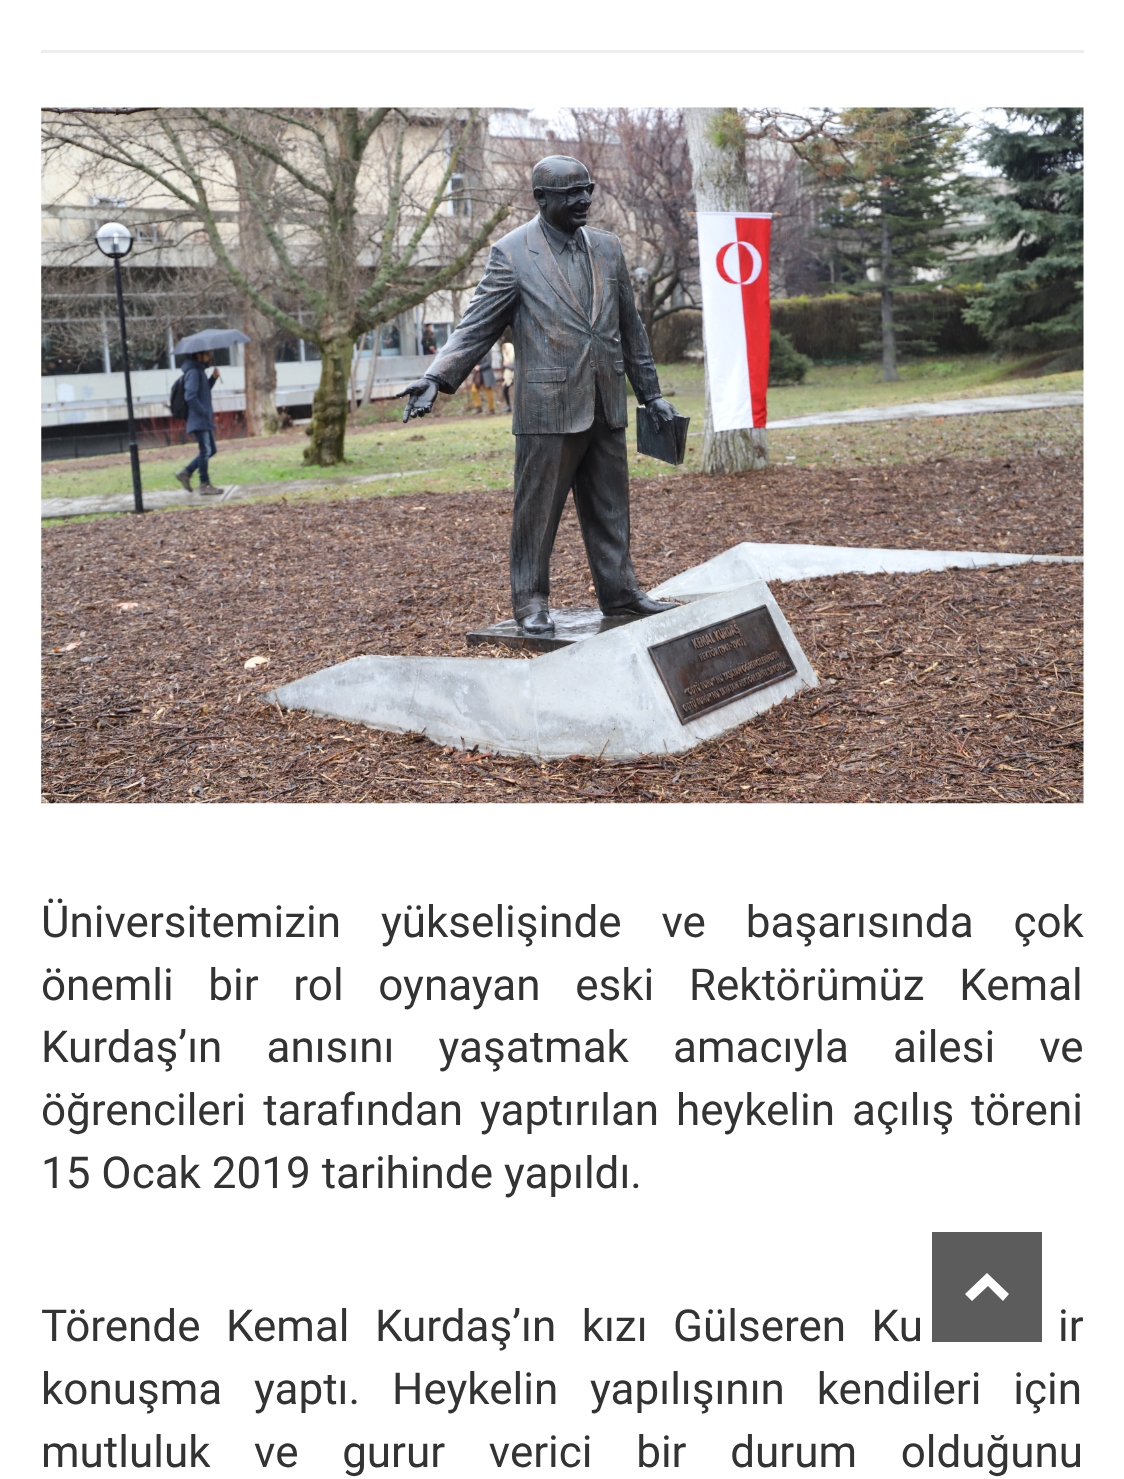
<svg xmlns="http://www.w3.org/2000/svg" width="1124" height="1479">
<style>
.a{font:44px Roboto;fill:#333}
</style>
<rect width="100%" height="100%" fill="#fff"/>
<path fill="#eee" d="M41 50h1043v3H41z"/>
<image href="1.png" x="41" y="107" width="1043" height="697"/>
<path fill="#333333cc" d="M932 1232h110v110H932z"/>
<path fill="#fff" d="M987 1273l22 21l-6 7l-15-15l-16 15l-7-7z"/>
<text class="a" x="41" y="937" word-spacing="29">Üniversitemizin yükselişinde ve başarısında çok</text>
<text class="a" x="41" y="1000" word-spacing="23.75">önemli bir rol oynayan eski Rektörümüz Kemal</text>
<text class="a" x="41" y="1062" word-spacing="33.25">Kurdaş’ın anısını yaşatmak amacıyla ailesi ve</text>
<text class="a" x="41" y="1125" word-spacing="6">öğrencileri tarafından yaptırılan heykelin açılış töreni</text>
<text class="a" x="41" y="1188">15 Ocak 2019 tarihinde yapıldı.</text>
<text class="a" x="41" y="1341" word-spacing="14.5">Törende Kemal Kurdaş’ın kızı Gülseren Ku</text>
<text class="a" x="1058" y="1341" word-spacing="14.5">ir</text>
<text class="a" x="41" y="1404" word-spacing="21">konuşma yaptı. Heykelin yapılışının kendileri için</text>
<text class="a" x="41" y="1467" word-spacing="32.75">mutluluk ve gurur verici bir durum olduğunu</text>
</svg>
